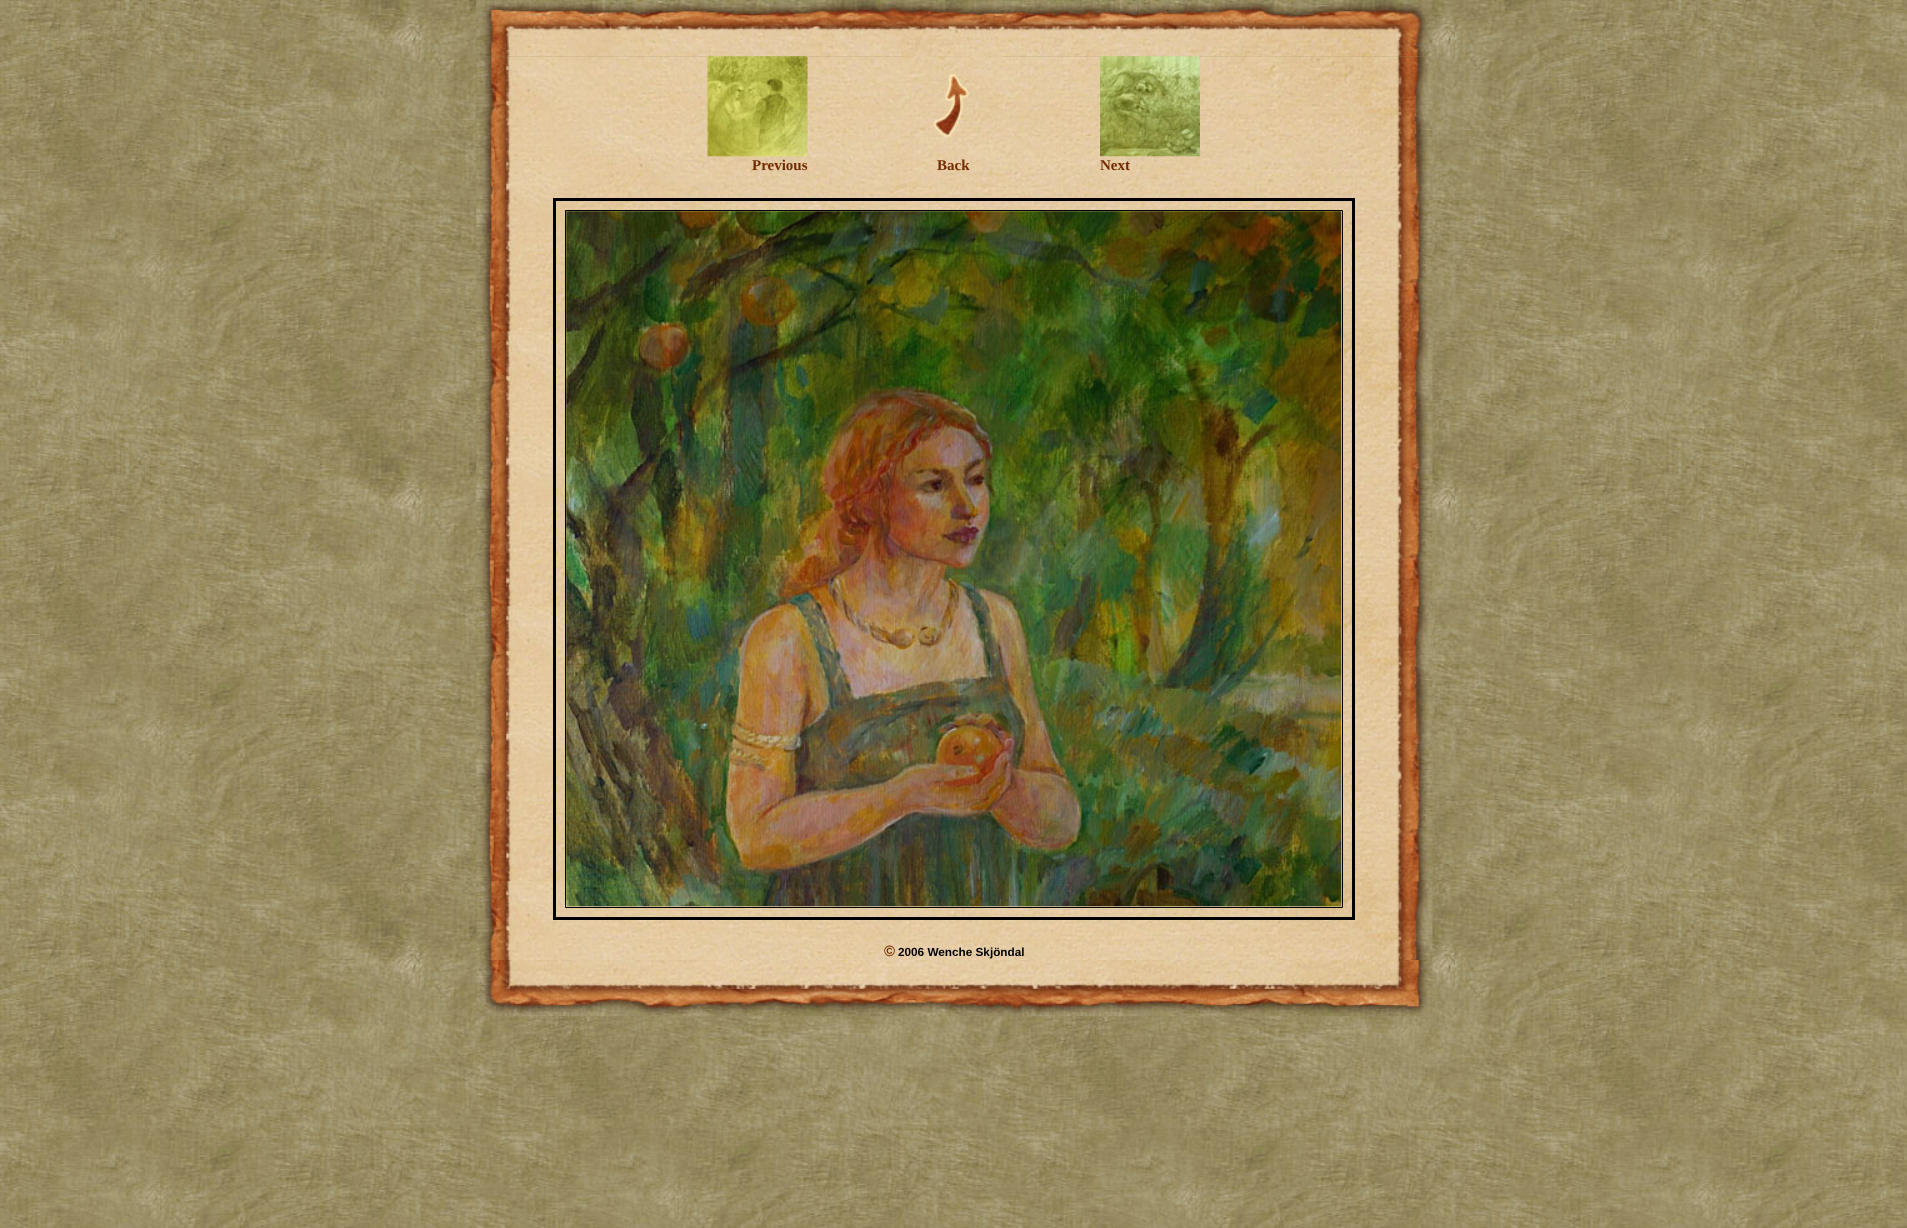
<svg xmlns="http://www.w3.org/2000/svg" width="1907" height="1228">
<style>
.a{font:bold 15px Liberation Serif;fill:#732c00}
.b{font:bold 15px Liberation Sans;fill:#732c00}
.c{font:bold 11.75px Liberation Sans;fill:#000}
</style>
<rect width="100%" height="100%" fill="#fff"/>
<image href="1.png" x="0" y="0" width="1907" height="1228"/>
<image href="3.png" x="476" y="56" width="957" height="904"/>
<image href="2.png" x="476" y="0" width="957" height="57"/>
<image href="4.png" x="707" y="56" width="101" height="101"/>
<image href="5.png" x="904" y="56" width="100" height="100"/>
<image href="6.png" x="1100" y="56" width="100" height="101"/>
<path fill="none" stroke="#000" stroke-width="3" d="M554.5 199.5h799v719H554.5z"/>
<path fill="none" stroke="#000" d="M565.5 210.5h777v697H565.5z"/>
<image href="7.png" x="566" y="211" width="776" height="696"/>
<image href="8.png" x="476" y="960" width="957" height="57"/>
<text class="a" x="752" y="170">Previous</text>
<text class="a" x="937" y="170">Back</text>
<text class="a" x="1100" y="170">Next</text>
<text class="b" x="884" y="956">©</text>
<text class="c" x="898" y="956">2006 Wenche Skjöndal</text>
</svg>
